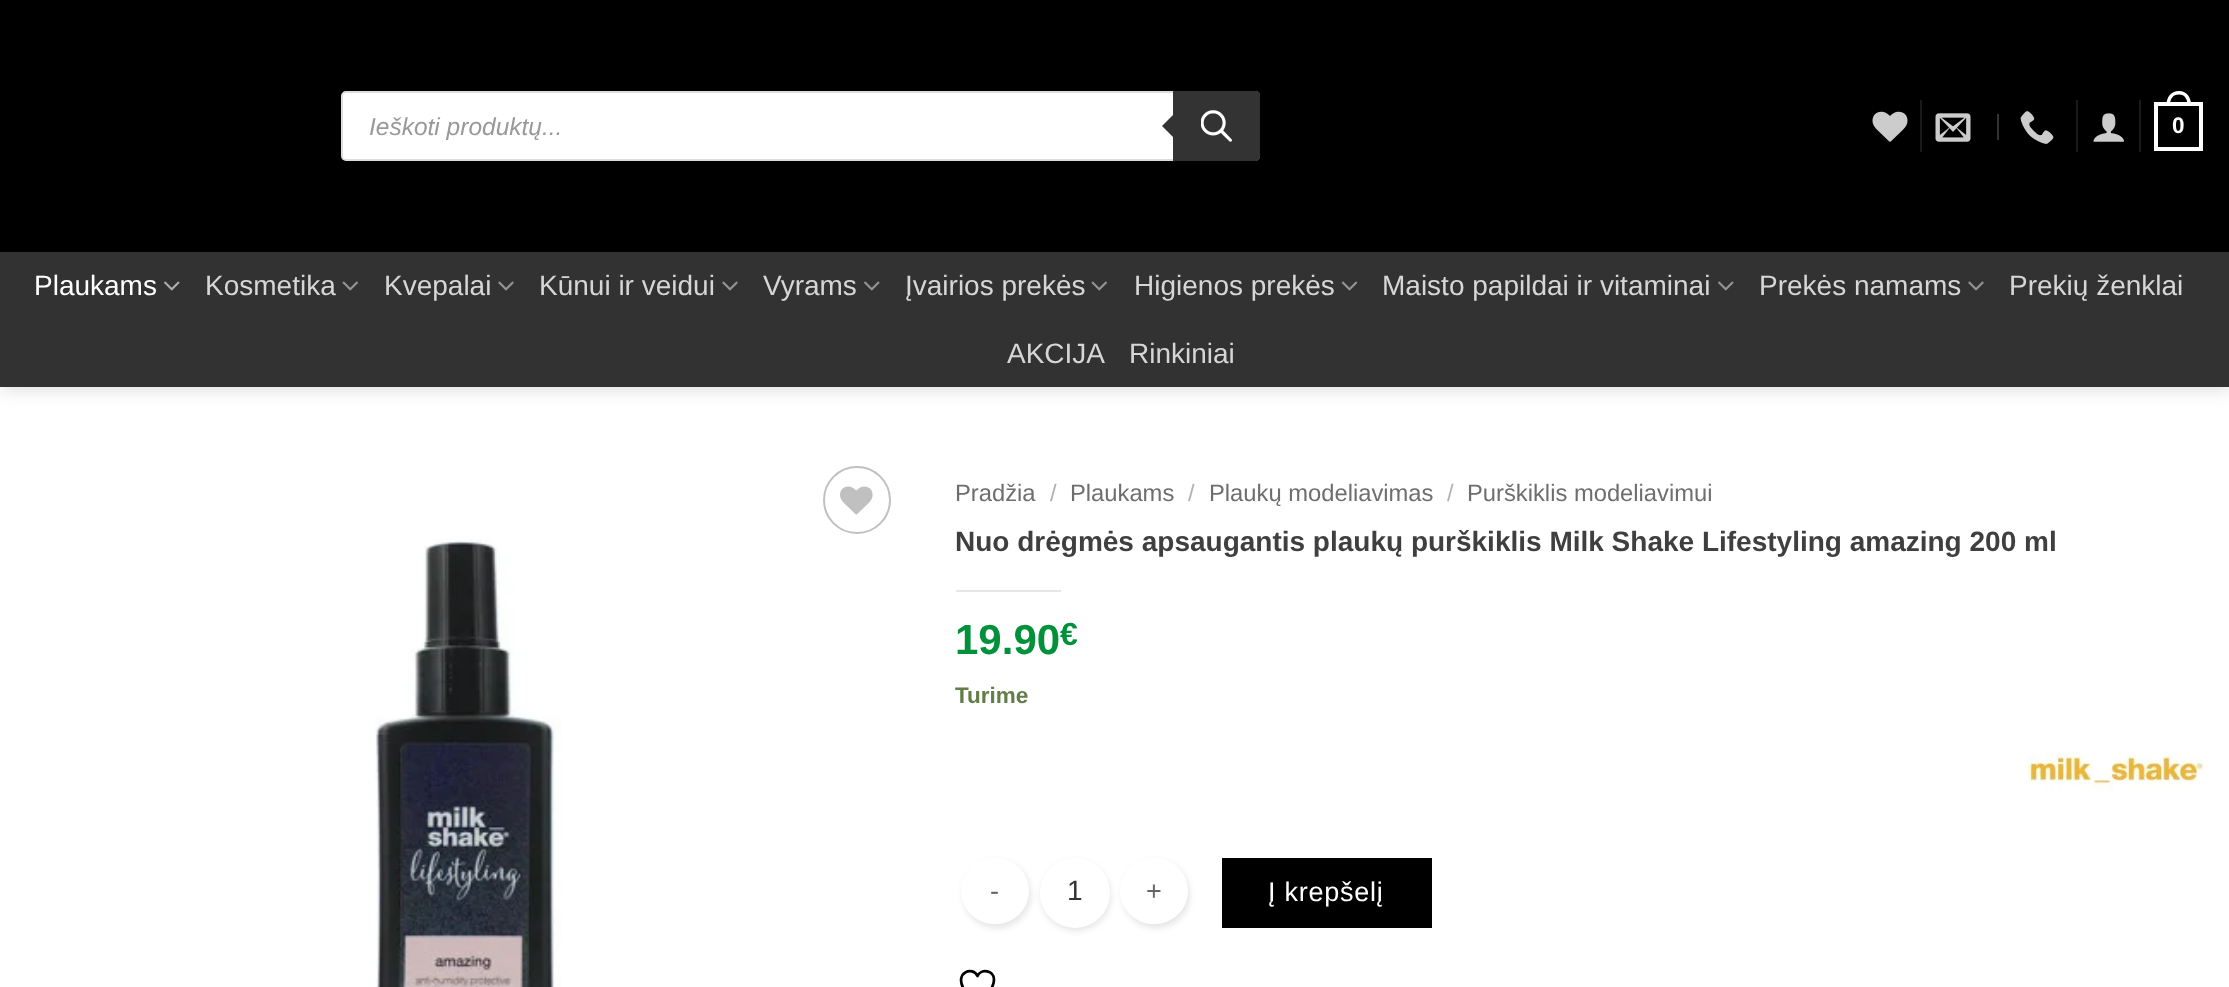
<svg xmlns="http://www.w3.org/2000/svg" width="2229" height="987">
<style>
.a{font:italic 24.5px Liberation Sans;fill:#999}
.b{font:bold 22.5px Liberation Sans;fill:#fff}
.c{font:28px Liberation Sans;fill:#fff}
.d{font:28px Liberation Sans;fill:#d6d6d6}
.e{font:23.75px Liberation Sans;fill:#6e6e6e}
.f{font:23.75px Liberation Sans;fill:#b2b2b2}
.g{font:bold 28px Liberation Sans;fill:#3f3f3f}
.h{font:bold 42px Liberation Sans;fill:#01913b}
.i{font:bold 32px Liberation Sans;fill:#01913b}
.j{font:bold 22.5px Liberation Sans;fill:#627d47}
.k{font:27px Liberation Sans;letter-spacing:0.75px;fill:#666}
.l{font:28px Liberation Sans;fill:#333}
.m{font:27px Liberation Sans;letter-spacing:0.75px;fill:#fff}
</style>
<rect width="100%" height="100%" fill="#fff"/>
<path fill="#00000026" filter="blur(9px)" d="M2 2h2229v387H2z"/>
<path fill="#000" d="M0 0h2229v252H0z"/>
<rect fill="#fff" stroke="#ddd" stroke-width="2" x="342" y="92" width="917" height="68" rx="4"/>
<path fill="#333" d="M1173 91h83c2 0 4 2 4 4v62c0 2-2 4-4 4h-83z"/>
<path fill="#333" d="M1176 112v28l-14-14z"/>
<image href="1.png" x="1201" y="110" width="31" height="32"/>
<image href="2.png" x="1872" y="111" width="36" height="31"/>
<path fill="#1a1a1a" d="M1920 100h2v52H1920z"/>
<image href="3.png" x="1935" y="113" width="36" height="29"/>
<path fill="#333" d="M1997 114h2v26H1997z"/>
<image href="4.png" x="2020" y="111" width="34" height="33"/>
<path fill="#1a1a1a" d="M2076 100h2v52H2076z"/>
<image href="5.png" x="2093" y="113" width="31" height="29"/>
<path fill="#1a1a1a" d="M2139 100h2v52H2139z"/>
<path fill="none" stroke="#fff" stroke-width="4" d="M2156 104h45v45H2156z"/>
<path fill="#fff" fill-rule="evenodd" d="M2179 91c8 0 12 6.5 12 14h-24.5c0-7.5 4-14 12.5-14zm0 3.5c6 0 8.5 5 8.5 10.5h-17.5c0-5.5 2.5-10.5 9-10.5z"/>
<path fill="#323232" d="M0 252h2229v135H0z"/>
<image href="6.png" x="164" y="281" width="16" height="10"/>
<image href="7.png" x="342" y="281" width="16" height="10"/>
<image href="8.png" x="498" y="281" width="16" height="10"/>
<image href="8.png" x="722" y="281" width="16" height="10"/>
<image href="9.png" x="864" y="281" width="16" height="10"/>
<image href="7.png" x="1091" y="281" width="16" height="10"/>
<image href="10.png" x="1341" y="281" width="17" height="10"/>
<image href="9.png" x="1718" y="281" width="16" height="10"/>
<image href="8.png" x="1968" y="281" width="16" height="10"/>
<circle fill="none" stroke="#c0c0c0" stroke-width="2" cx="857" cy="500" r="33"/>
<image href="11.png" x="840" y="486" width="33" height="29"/>
<image href="12.png" x="375" y="539" width="187" height="448"/>
<path fill="#e6e6e6" d="M956 590h105v2H956z"/>
<image href="13.png" x="2028" y="751" width="176" height="40"/>
<rect fill="#0000001a" filter="blur(3px)" x="1041" y="861" width="70" height="70" rx="35"/>
<circle fill="#fff" cx="1075" cy="893" r="35"/>
<rect fill="#0000001a" filter="blur(3px)" x="963" y="861" width="68" height="67" rx="33.5"/>
<rect fill="#fff" x="961" y="858" width="68" height="66" rx="33"/>
<rect fill="#0000001a" filter="blur(3px)" x="1122" y="861" width="68" height="67" rx="33.5"/>
<rect fill="#fff" x="1120" y="858" width="68" height="66" rx="33"/>
<path fill="#000" d="M1222 858h210v70H1222z"/>
<path fill="none" stroke="#000" stroke-width="2.7" stroke-linecap="round" stroke-linejoin="round" d="M994 979.5c0-9-13-11.5-16.5-3.5c-4.5-10-23-4-14 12.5c3 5 8.5 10 14 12.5c0 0 16.5-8.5 16.5-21.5z"/>
<text class="a" x="369" y="135">Ieškoti produktų...</text>
<text class="b" x="2172" y="133">0</text>
<text class="c" x="34" y="295">Plaukams</text>
<text class="d" x="205" y="295">Kosmetika</text>
<text class="d" x="384" y="295">Kvepalai</text>
<text class="d" x="539" y="295">Kūnui ir veidui</text>
<text class="d" x="763" y="295">Vyrams</text>
<text class="d" x="905" y="295">Įvairios prekės</text>
<text class="d" x="1134" y="295">Higienos prekės</text>
<text class="d" x="1382" y="295">Maisto papildai ir vitaminai</text>
<text class="d" x="1759" y="295">Prekės namams</text>
<text class="d" x="2009" y="295">Prekių ženklai</text>
<text class="d" x="1007" y="363">AKCIJA</text>
<text class="d" x="1129" y="363">Rinkiniai</text>
<text class="e" x="955" y="501">Pradžia</text>
<text class="f" x="1050" y="501">/</text>
<text class="e" x="1070" y="501">Plaukams</text>
<text class="f" x="1188" y="501">/</text>
<text class="e" x="1209" y="501">Plaukų modeliavimas</text>
<text class="f" x="1447" y="501">/</text>
<text class="e" x="1467" y="501">Purškiklis modeliavimui</text>
<text class="g" x="955" y="551">Nuo drėgmės apsaugantis plaukų purškiklis Milk Shake Lifestyling amazing 200 ml</text>
<text class="h" x="955" y="654">19.90</text>
<text class="i" x="1060" y="645">€</text>
<text class="j" x="955" y="703">Turime</text>
<text class="k" x="990" y="900">-</text>
<text class="l" x="1067" y="900">1</text>
<text class="k" x="1146" y="900">+</text>
<text class="m" x="1268" y="901">Į krepšelį</text>
</svg>
